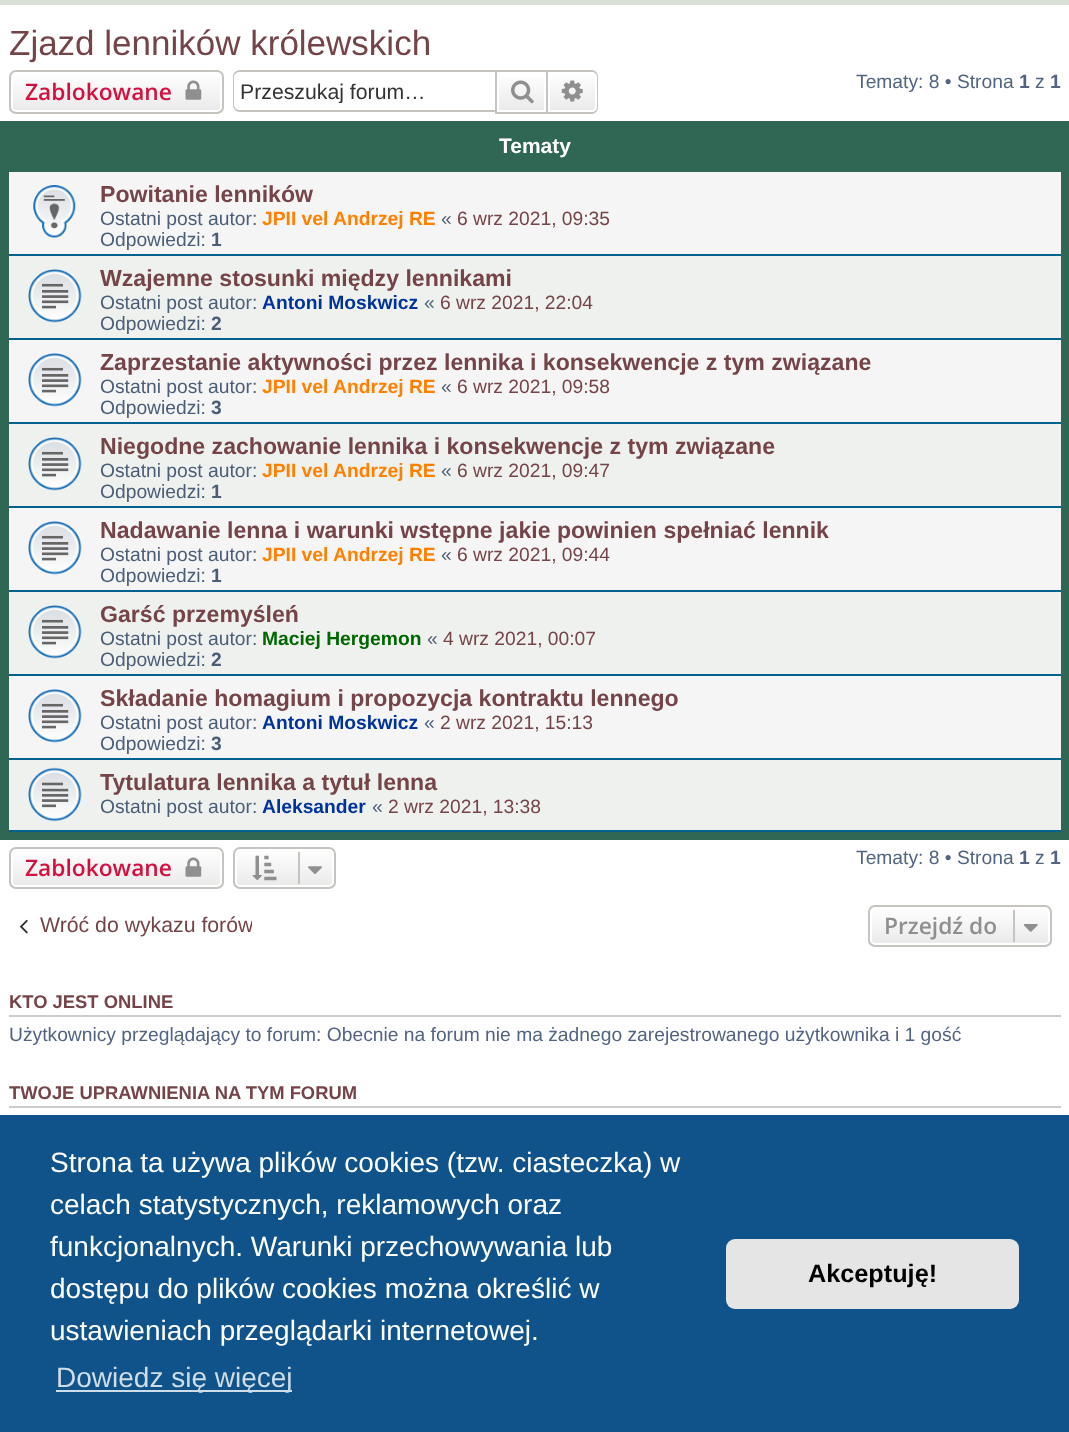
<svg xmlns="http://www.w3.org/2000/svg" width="1069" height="1432">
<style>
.a{font:35px Liberation Sans;fill:#754448}
.b{font:600 22.75px Open Sans;fill:#d31141}
.c{font:21.25px Liberation Sans;fill:#333}
.d{font:19.25px Liberation Sans;fill:#536482}
.e{font:bold 19.25px Liberation Sans;fill:#536482}
.f{font:bold 21px Liberation Sans;fill:#fff}
.g{font:bold 23.1px Liberation Sans;fill:#754448}
.h{font:19.25px Liberation Sans;fill:#4c5d77}
.i{font:bold 19.25px Liberation Sans;fill:#ff8000}
.j{font:19.25px Liberation Sans;fill:#754448}
.k{font:bold 19.25px Liberation Sans;fill:#4c5d77}
.l{font:bold 19.25px Liberation Sans;fill:#039}
.m{font:bold 19.25px Liberation Sans;fill:#060}
.n{font:21.25px Liberation Sans;fill:#754448}
.o{font:600 22.75px Open Sans;fill:#8f8f8f}
.p{font:bold 18.4px Liberation Sans;fill:#754448}
.q{font:28px Liberation Sans;fill:#fff}
.r{font:28px Liberation Sans;fill:#cfdde8}
.s{font:bold 25.25px Liberation Sans;fill:#000}
</style>
<defs>
<clipPath id="clip1"><rect x="9" y="70" width="215" height="44" rx="7"/></clipPath>
<linearGradient id="g1" gradientUnits="userSpaceOnUse" x1="116" y1="72" x2="116" y2="112"><stop offset="0" stop-color="#fff"/><stop offset="1" stop-color="#e9e9e9"/></linearGradient>
<linearGradient id="g2" gradientUnits="userSpaceOnUse" x1="522" y1="72" x2="522" y2="112"><stop offset="0" stop-color="#fff"/><stop offset="1" stop-color="#e9e9e9"/></linearGradient>
<linearGradient id="g3" gradientUnits="userSpaceOnUse" x1="572" y1="72" x2="572" y2="112"><stop offset="0" stop-color="#fff"/><stop offset="1" stop-color="#e9e9e9"/></linearGradient>
<clipPath id="clip2"><rect x="9" y="847" width="215" height="42" rx="7"/></clipPath>
<linearGradient id="g4" gradientUnits="userSpaceOnUse" x1="116" y1="849" x2="116" y2="887"><stop offset="0" stop-color="#fff"/><stop offset="1" stop-color="#e9e9e9"/></linearGradient>
<clipPath id="clip3"><rect x="233" y="847" width="103" height="42" rx="7"/></clipPath>
<linearGradient id="g5" gradientUnits="userSpaceOnUse" x1="284" y1="849" x2="284" y2="887"><stop offset="0" stop-color="#fff"/><stop offset="1" stop-color="#e9e9e9"/></linearGradient>
<clipPath id="clip4"><rect x="868" y="905" width="184" height="42" rx="7"/></clipPath>
<linearGradient id="g6" gradientUnits="userSpaceOnUse" x1="960" y1="907" x2="960" y2="945"><stop offset="0" stop-color="#fff"/><stop offset="1" stop-color="#e9e9e9"/></linearGradient>
<clipPath id="clip5"><path d="M240 79h243v24H240z"/></clipPath>
<clipPath id="clip6"><path d="M9 914h243v28H9z"/></clipPath>
</defs>
<rect width="100%" height="100%" fill="#fff"/>
<path fill="#d7e1d7" d="M0 0h1069v5H0z"/>
<g clip-path="url(#clip1)">
<path fill="url(#g1)" d="M9 72h215v40H9z"/>
</g>
<rect fill="none" stroke="#fff" stroke-width="2" x="12" y="73" width="209" height="38" rx="4"/>
<rect fill="none" stroke="#c7c3bf" stroke-width="2" x="10" y="71" width="213" height="42" rx="6"/>
<image href="1.png" x="185" y="80" width="17" height="20"/>
<path fill="#c7c3bf" fill-rule="evenodd" d="M240 70h255v42h-255c-4 0-7-3-7-7v-28c0-4 3-7 7-7zm0 2h255v38h-255c-3 0-6-2-6-5v-28c0-3 3-5 6-5z"/>
<path fill="url(#g2)" d="M499 77h45v33H499z"/>
<path fill="none" stroke="#c7c3bf" stroke-width="2" d="M496 71h51v42H496z"/>
<image href="2.png" x="511" y="80" width="23" height="24"/>
<path fill="url(#g3)" stroke="#fff" stroke-width="2" d="M549 73h43c2 0 4 2 4 4v30c0 2-2 4-4 4h-43z"/>
<path fill="#c7c3bf" fill-rule="evenodd" d="M548 70h44c3 0 6 3 6 7v30c0 4-3 7-6 7h-44zm0 2h44c2 0 5 2 5 5v30c0 3-3 5-5 5h-44z"/>
<image href="3.png" x="561" y="80" width="22" height="22"/>
<path fill="#306754" d="M0 121h1069v719H0z"/>
<path fill="#f5f5f5" d="M9 172h1052v82H9z"/>
<path fill="#00608f" d="M9 254h1052v2H9z"/>
<image href="4.png" x="33" y="185" width="43" height="53"/>
<path fill="#eef1ee" d="M9 256h1052v82H9z"/>
<path fill="#00608f" d="M9 338h1052v2H9z"/>
<image href="5.png" x="28" y="269" width="54" height="54"/>
<path fill="#f5f5f5" d="M9 340h1052v82H9z"/>
<path fill="#00608f" d="M9 422h1052v2H9z"/>
<image href="6.png" x="28" y="353" width="54" height="54"/>
<path fill="#eef1ee" d="M9 424h1052v82H9z"/>
<path fill="#00608f" d="M9 506h1052v2H9z"/>
<image href="5.png" x="28" y="437" width="54" height="54"/>
<path fill="#f5f5f5" d="M9 508h1052v82H9z"/>
<path fill="#00608f" d="M9 590h1052v2H9z"/>
<image href="6.png" x="28" y="521" width="54" height="54"/>
<path fill="#eef1ee" d="M9 592h1052v82H9z"/>
<path fill="#00608f" d="M9 674h1052v2H9z"/>
<image href="5.png" x="28" y="605" width="54" height="54"/>
<path fill="#f5f5f5" d="M9 676h1052v82H9z"/>
<path fill="#00608f" d="M9 758h1052v2H9z"/>
<image href="6.png" x="28" y="689" width="54" height="54"/>
<path fill="#eef1ee" d="M9 760h1052v70H9z"/>
<path fill="#00608f" d="M9 830h1052v2H9z"/>
<image href="7.png" x="28" y="767" width="54" height="55"/>
<g clip-path="url(#clip2)">
<path fill="url(#g4)" d="M9 849h215v38H9z"/>
</g>
<rect fill="none" stroke="#fff" stroke-width="2" x="12" y="850" width="209" height="36" rx="4"/>
<rect fill="none" stroke="#c7c3bf" stroke-width="2" x="10" y="848" width="213" height="40" rx="6"/>
<image href="8.png" x="185" y="857" width="17" height="20"/>
<g clip-path="url(#clip3)">
<path fill="url(#g5)" d="M233 849h103v38H233z"/>
</g>
<rect fill="none" stroke="#fff" stroke-width="2" x="236" y="850" width="97" height="36" rx="4"/>
<rect fill="none" stroke="#c7c3bf" stroke-width="2" x="234" y="848" width="101" height="40" rx="6"/>
<image href="9.png" x="252" y="855" width="25" height="26"/>
<path fill="#c7c3bf" d="M298 852h2v32H298z"/>
<image href="10.png" x="308" y="866" width="14" height="8"/>
<image href="11.png" x="19" y="919" width="9" height="15"/>
<g clip-path="url(#clip4)">
<path fill="url(#g6)" d="M868 907h184v38H868z"/>
</g>
<rect fill="none" stroke="#fff" stroke-width="2" x="871" y="908" width="178" height="36" rx="4"/>
<rect fill="none" stroke="#c7c3bf" stroke-width="2" x="869" y="906" width="182" height="40" rx="6"/>
<path fill="#c7c3bf" d="M1013 910h2v32H1013z"/>
<image href="12.png" x="1023" y="924" width="15" height="8"/>
<path fill="#ccc" d="M9 1015h1052v2H9z"/>
<path fill="#ccc" d="M9 1106h1052v2H9z"/>
<path fill="#0f538a" d="M0 1115h1069v317H0z"/>
<path fill="#cfdde8" d="M56 1390h236v2H56z"/>
<rect fill="#e5e5e5" x="726" y="1239" width="293" height="70" rx="9"/>
<text class="a" x="9" y="55">Zjazd lenników królewskich</text>
<text class="b" x="25" y="100">Zablokowane</text>
<g clip-path="url(#clip5)">
<text class="c" x="240" y="99">Przeszukaj forum…</text>
</g>
<text class="d" x="856" y="88">Tematy: 8 • Strona</text>
<text class="e" x="1019" y="88">1</text>
<text class="d" x="1035" y="88">z</text>
<text class="e" x="1050" y="88">1</text>
<text class="f" x="499" y="153">Tematy</text>
<text class="g" x="100" y="202">Powitanie lenników</text>
<text class="h" x="100" y="225">Ostatni post autor:</text>
<text class="i" x="262" y="225">JPII vel Andrzej RE</text>
<text class="h" x="441" y="225">«</text>
<text class="j" x="457" y="225">6 wrz 2021, 09:35</text>
<text class="h" x="100" y="246">Odpowiedzi:</text>
<text class="k" x="211" y="246">1</text>
<text class="g" x="100" y="286">Wzajemne stosunki między lennikami</text>
<text class="h" x="100" y="309">Ostatni post autor:</text>
<text class="l" x="262" y="309">Antoni Moskwicz</text>
<text class="h" x="424" y="309">«</text>
<text class="j" x="440" y="309">6 wrz 2021, 22:04</text>
<text class="h" x="100" y="330">Odpowiedzi:</text>
<text class="k" x="211" y="330">2</text>
<text class="g" x="100" y="370">Zaprzestanie aktywności przez lennika i konsekwencje z tym związane</text>
<text class="h" x="100" y="393">Ostatni post autor:</text>
<text class="i" x="262" y="393">JPII vel Andrzej RE</text>
<text class="h" x="441" y="393">«</text>
<text class="j" x="457" y="393">6 wrz 2021, 09:58</text>
<text class="h" x="100" y="414">Odpowiedzi:</text>
<text class="k" x="211" y="414">3</text>
<text class="g" x="100" y="454">Niegodne zachowanie lennika i konsekwencje z tym związane</text>
<text class="h" x="100" y="477">Ostatni post autor:</text>
<text class="i" x="262" y="477">JPII vel Andrzej RE</text>
<text class="h" x="441" y="477">«</text>
<text class="j" x="457" y="477">6 wrz 2021, 09:47</text>
<text class="h" x="100" y="498">Odpowiedzi:</text>
<text class="k" x="211" y="498">1</text>
<text class="g" x="100" y="538">Nadawanie lenna i warunki wstępne jakie powinien spełniać lennik</text>
<text class="h" x="100" y="561">Ostatni post autor:</text>
<text class="i" x="262" y="561">JPII vel Andrzej RE</text>
<text class="h" x="441" y="561">«</text>
<text class="j" x="457" y="561">6 wrz 2021, 09:44</text>
<text class="h" x="100" y="582">Odpowiedzi:</text>
<text class="k" x="211" y="582">1</text>
<text class="g" x="100" y="622">Garść przemyśleń</text>
<text class="h" x="100" y="645">Ostatni post autor:</text>
<text class="m" x="262" y="645">Maciej Hergemon</text>
<text class="h" x="427" y="645">«</text>
<text class="j" x="443" y="645">4 wrz 2021, 00:07</text>
<text class="h" x="100" y="666">Odpowiedzi:</text>
<text class="k" x="211" y="666">2</text>
<text class="g" x="100" y="706">Składanie homagium i propozycja kontraktu lennego</text>
<text class="h" x="100" y="729">Ostatni post autor:</text>
<text class="l" x="262" y="729">Antoni Moskwicz</text>
<text class="h" x="424" y="729">«</text>
<text class="j" x="440" y="729">2 wrz 2021, 15:13</text>
<text class="h" x="100" y="750">Odpowiedzi:</text>
<text class="k" x="211" y="750">3</text>
<text class="g" x="100" y="790">Tytulatura lennika a tytuł lenna</text>
<text class="h" x="100" y="813">Ostatni post autor:</text>
<text class="l" x="262" y="813">Aleksander</text>
<text class="h" x="372" y="813">«</text>
<text class="j" x="388" y="813">2 wrz 2021, 13:38</text>
<text class="b" x="25" y="876">Zablokowane</text>
<text class="d" x="856" y="864">Tematy: 8 • Strona</text>
<text class="e" x="1019" y="864">1</text>
<text class="d" x="1035" y="864">z</text>
<text class="e" x="1050" y="864">1</text>
<g clip-path="url(#clip6)">
<text class="n" x="40" y="932">Wróć do wykazu forów</text>
</g>
<text class="o" x="884" y="934">Przejdź do</text>
<text class="p" x="9" y="1008">KTO JEST ONLINE</text>
<text class="d" x="9" y="1041">Użytkownicy przeglądający to forum: Obecnie na forum nie ma żadnego zarejestrowanego użytkownika i 1 gość</text>
<text class="p" x="9" y="1099">TWOJE UPRAWNIENIA NA TYM FORUM</text>
<text class="q" x="50" y="1172">Strona ta używa plików cookies (tzw. ciasteczka) w</text>
<text class="q" x="50" y="1214">celach statystycznych, reklamowych oraz</text>
<text class="q" x="50" y="1256">funkcjonalnych. Warunki przechowywania lub</text>
<text class="q" x="50" y="1298">dostępu do plików cookies można określić w</text>
<text class="q" x="50" y="1340">ustawieniach przeglądarki internetowej.</text>
<text class="r" x="56" y="1387">Dowiedz się więcej</text>
<text class="s" x="808" y="1282">Akceptuję!</text>
</svg>
